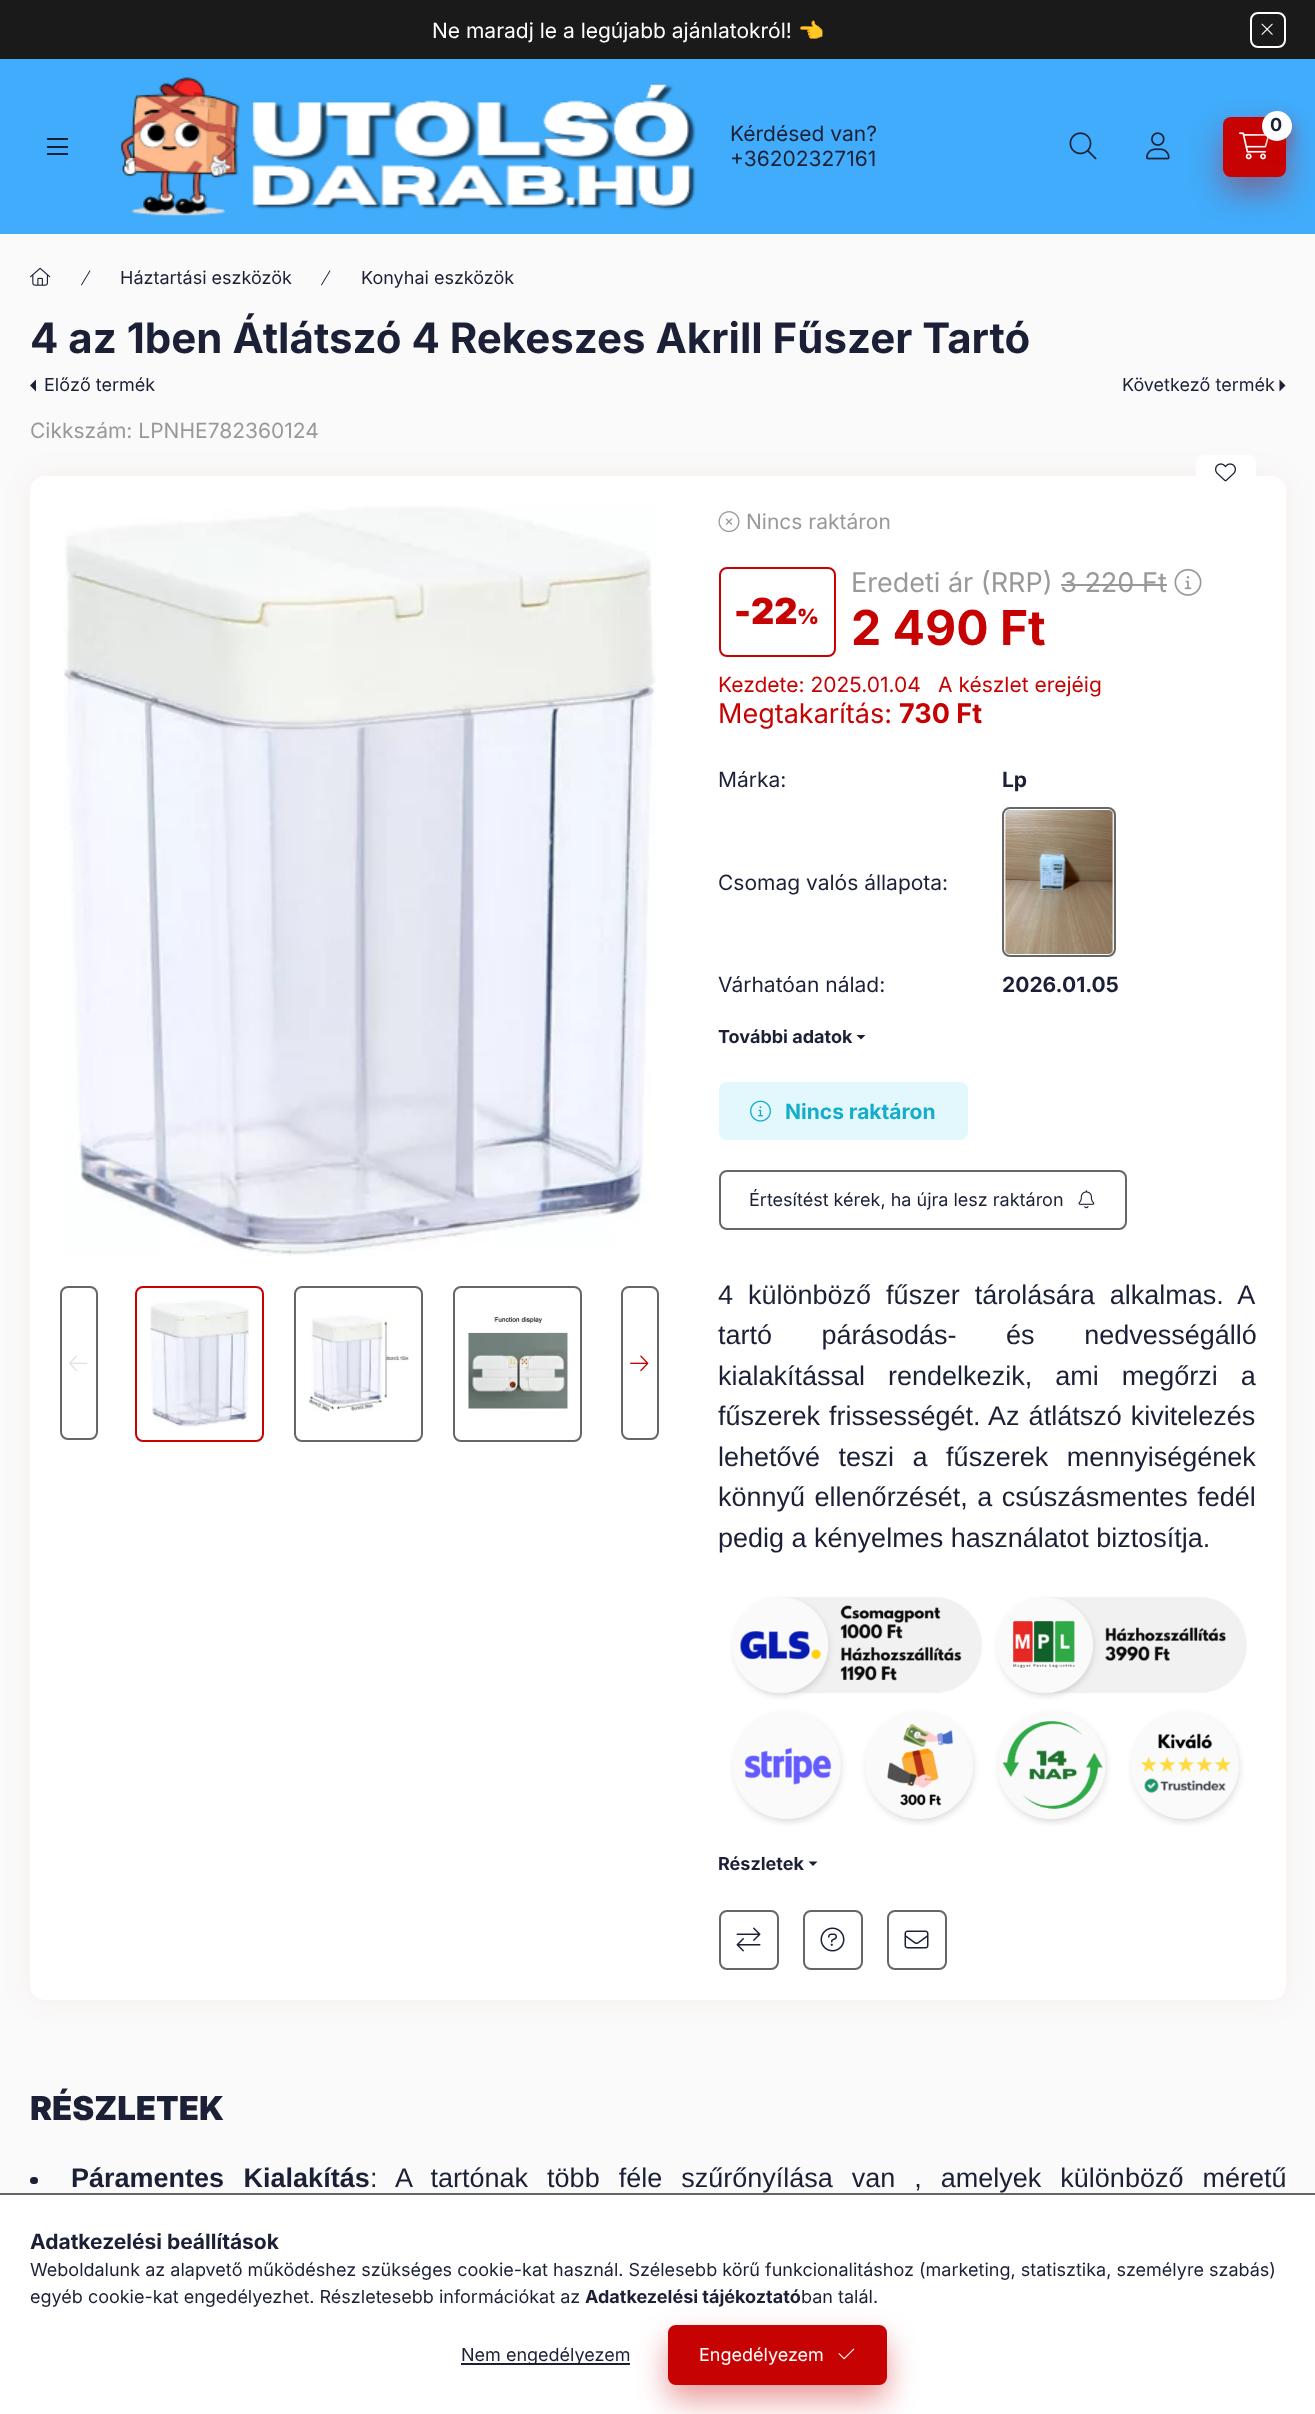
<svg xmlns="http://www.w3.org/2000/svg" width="1315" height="2414">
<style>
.a{font:21px Inter;fill:#fff}
.b{font:21px Noto Color Emoji;fill:#fff}
.c{font:21px Inter;fill:#1b2036}
.d{font:bold 18px Inter;fill:#1b2036}
.e{font:18px Inter;fill:#1b2036}
.f{font:bold 42px Inter;fill:#1b2036}
.g{font:21px Inter;fill:#999}
.h{font:900 36px Inter;fill:#c70202}
.i{font:900 21px Inter;fill:#c70202}
.j{font:27px Inter;fill:#999}
.k{font:bold 48px Inter;fill:#c70202}
.l{font:21px Inter;fill:#c70202}
.m{font:27px Inter;fill:#c70202}
.n{font:bold 27px Inter;fill:#c70202}
.o{font:bold 21px Inter;fill:#1b2036}
.p{font:bold 21px Inter;fill:#16adca}
.q{font:27px Liberation Sans;fill:#1b2036}
.r{font:900 33px Inter;fill:#1b2036}
.s{font:bold 27px Liberation Sans;fill:#1b2036}
.t{font:18px Inter;fill:#fff}
</style>
<rect width="100%" height="100%" fill="#fafafa"/>
<path fill="#1a1a1a" d="M0 0h1315v59H0z"/>
<rect fill="none" stroke="#fff" stroke-width="2" x="1251" y="13" width="34" height="34" rx="7"/>
<image href="1.png" x="1261" y="23" width="12" height="12"/>
<path fill="#40acfb" d="M0 59h1315v175H0z"/>
<path fill="#1b2036" d="M47 138h21v2H47z"/>
<path fill="#1b2036" d="M47 146h21v2H47z"/>
<path fill="#1b2036" d="M47 153h21v2H47z"/>
<image href="2.png" x="120" y="77" width="576" height="140"/>
<rect fill="#c7020266" filter="blur(15px)" x="1223" y="132" width="63" height="60" rx="8"/>
<rect fill="#c70202" x="1223" y="117" width="63" height="60" rx="8"/>
<image href="3.png" x="1239" y="132" width="30" height="28"/>
<rect fill="#c7020266" filter="blur(7.5px)" x="1262" y="119" width="30" height="30" rx="15"/>
<circle fill="#fff" cx="1277" cy="126" r="15"/>
<image href="4.png" x="1069" y="132" width="28" height="28"/>
<image href="5.png" x="1146" y="132" width="24" height="28"/>
<image href="6.png" x="30" y="267" width="21" height="19"/>
<image href="7.png" x="81" y="270" width="10" height="16"/>
<image href="7.png" x="321" y="270" width="10" height="16"/>
<path fill="#1b2036" d="M36 391.5v-12l-6 6z"/>
<path fill="#1b2036" d="M1279.5 391.5v-12l6 6z"/>
<rect fill="#c702020d" filter="blur(15px)" x="30" y="476" width="1256" height="1524" rx="15"/>
<rect fill="#fff" x="30" y="476" width="1256" height="1524" rx="15"/>
<rect fill="#fff" x="1196" y="455" width="60" height="36" rx="8"/>
<image href="8.png" x="1215" y="463" width="21" height="19"/>
<image href="9.png" x="63" y="506" width="593" height="750"/>
<rect fill="none" stroke="#666" stroke-width="2" x="61" y="1287" width="36" height="152" rx="7"/>
<image href="10.png" x="69" y="1355" width="19" height="16"/>
<rect fill="none" stroke="#c70202" stroke-width="2" x="136" y="1287" width="127" height="154" rx="7"/>
<image href="11.png" x="150" y="1300" width="99" height="127"/>
<rect fill="none" stroke="#666" stroke-width="2" x="295" y="1287" width="127" height="154" rx="7"/>
<image href="12.png" x="309" y="1315" width="100" height="97"/>
<rect fill="none" stroke="#666" stroke-width="2" x="454" y="1287" width="127" height="154" rx="7"/>
<image href="13.png" x="468" y="1317" width="100" height="92"/>
<rect fill="none" stroke="#666" stroke-width="2" x="622" y="1287" width="36" height="152" rx="7"/>
<image href="14.png" x="630" y="1355" width="19" height="17"/>
<image href="15.png" x="718" y="511" width="22" height="22"/>
<rect fill="none" stroke="#c70202" stroke-width="2" x="720" y="568" width="115" height="88" rx="7"/>
<path fill="#999" d="M1061 584h106v2H1061z"/>
<image href="16.png" x="1174" y="568" width="28" height="28"/>
<rect fill="none" stroke="#666" stroke-width="2" x="1003" y="808" width="112" height="148" rx="7"/>
<image href="17.png" x="1004" y="810" width="110" height="144"/>
<path fill="#1b2036" d="M856.5 1035h9l-4.5 4.5z"/>
<rect fill="#e3f8fc" x="719" y="1082" width="249" height="58" rx="8"/>
<image href="18.png" x="750" y="1100" width="21" height="22"/>
<rect fill="none" stroke="#666" stroke-width="2" x="720" y="1171" width="406" height="58" rx="7"/>
<image href="19.png" x="1078" y="1190" width="17" height="19"/>
<image href="20.png" x="730" y="1596" width="517" height="230"/>
<path fill="#1b2036" d="M808.5 1861.5h9l-4.5 4.5z"/>
<rect fill="none" stroke="#666" stroke-width="2" x="720" y="1911" width="58" height="58" rx="7"/>
<image href="21.png" x="736" y="1927" width="25" height="25"/>
<rect fill="none" stroke="#666" stroke-width="2" x="804" y="1911" width="58" height="58" rx="7"/>
<image href="22.png" x="820" y="1927" width="25" height="25"/>
<rect fill="none" stroke="#666" stroke-width="2" x="888" y="1911" width="58" height="58" rx="7"/>
<image href="23.png" x="904" y="1930" width="25" height="19"/>
<rect fill="#1b2036" x="30" y="2177" width="8" height="7" rx="3.5"/>
<path fill="#fff" d="M0 2195h1315v219H0z"/>
<path fill="#666" d="M0 2193h1315v2H0z"/>
<path fill="#1b2036" d="M461 2363h169v2H461z"/>
<rect fill="#c7020266" filter="blur(15px)" x="668" y="2340" width="219" height="60" rx="8"/>
<rect fill="#c70202" stroke="#c70202" stroke-width="2" x="669" y="2326" width="217" height="58" rx="7"/>
<image href="24.png" x="838" y="2348" width="17" height="12"/>
<text class="a" x="432" y="38">Ne maradj le a legújabb ajánlatokról!</text>
<text class="b" x="798" y="38">👈</text>
<text class="c" x="730" y="141">Kérdésed van?</text>
<text class="c" x="730" y="166">+36202327161</text>
<text class="d" x="1270" y="131">0</text>
<text class="e" x="120" y="284">Háztartási eszközök</text>
<text class="e" x="361" y="284">Konyhai eszközök</text>
<text class="f" x="30" y="353">4 az 1ben Átlátszó 4 Rekeszes Akrill Fűszer Tartó</text>
<text class="e" x="44" y="391">Előző termék</text>
<text class="e" x="1122" y="391">Következő termék</text>
<text class="g" x="30" y="438">Cikkszám: LPNHE782360124</text>
<text class="g" x="746" y="529">Nincs raktáron</text>
<text class="h" x="734" y="624">-</text>
<text class="h" x="751" y="624">22</text>
<text class="i" x="797" y="624">%</text>
<text class="j" x="851" y="592">Eredeti ár (RRP) 3 220 Ft</text>
<text class="k" x="851" y="645">2 490 Ft</text>
<text class="l" x="718" y="692">Kezdete: 2025.01.04</text>
<text class="l" x="938" y="692">A készlet erejéig</text>
<text class="m" x="718" y="723">Megtakarítás:</text>
<text class="n" x="899" y="723">730 Ft</text>
<text class="c" x="718" y="787">Márka:</text>
<text class="o" x="1002" y="787">Lp</text>
<text class="c" x="718" y="890">Csomag valós állapota:</text>
<text class="c" x="718" y="992">Várhatóan nálad:</text>
<text class="o" x="1002" y="992">2026.01.05</text>
<text class="d" x="718" y="1043">További adatok</text>
<text class="p" x="785" y="1119">Nincs raktáron</text>
<text class="e" x="749" y="1206">Értesítést kérek, ha újra lesz raktáron</text>
<text class="q" x="718" y="1304" word-spacing="7.5">4 különböző fűszer tárolására alkalmas. A</text>
<text class="q" x="718" y="1344" word-spacing="42">tartó párásodás- és nedvességálló</text>
<text class="q" x="718" y="1385" word-spacing="15.5">kialakítással rendelkezik, ami megőrzi a</text>
<text class="q" x="718" y="1425" word-spacing="1.5">fűszerek frissességét. Az átlátszó kivitelezés</text>
<text class="q" x="718" y="1466" word-spacing="11">lehetővé teszi a fűszerek mennyiségének</text>
<text class="q" x="718" y="1506" word-spacing="2">könnyű ellenőrzését, a csúszásmentes fedél</text>
<text class="q" x="718" y="1547">pedig a kényelmes használatot biztosítja.</text>
<text class="d" x="718" y="1870">Részletek</text>
<text class="r" x="30" y="2120">RÉSZLETEK</text>
<text class="s" x="71" y="2187" word-spacing="12">Páramentes Kialakítás</text>
<text class="q" x="370" y="2187" word-spacing="11.5">: A tartónak több féle szűrőnyílása van , amelyek különböző méretű</text>
<text class="o" x="30" y="2249">Adatkezelési beállítások</text>
<text class="e" x="30" y="2276">Weboldalunk az alapvető működéshez szükséges cookie-kat használ. Szélesebb körű funkcionalitáshoz (marketing, statisztika, személyre szabás)</text>
<text class="e" x="30" y="2303">egyéb cookie-kat engedélyezhet. Részletesebb információkat az</text>
<text class="d" x="585" y="2303">Adatkezelési tájékoztató</text>
<text class="e" x="801" y="2303">ban talál.</text>
<text class="e" x="461" y="2361">Nem engedélyezem</text>
<text class="t" x="699" y="2361">Engedélyezem</text>
</svg>
